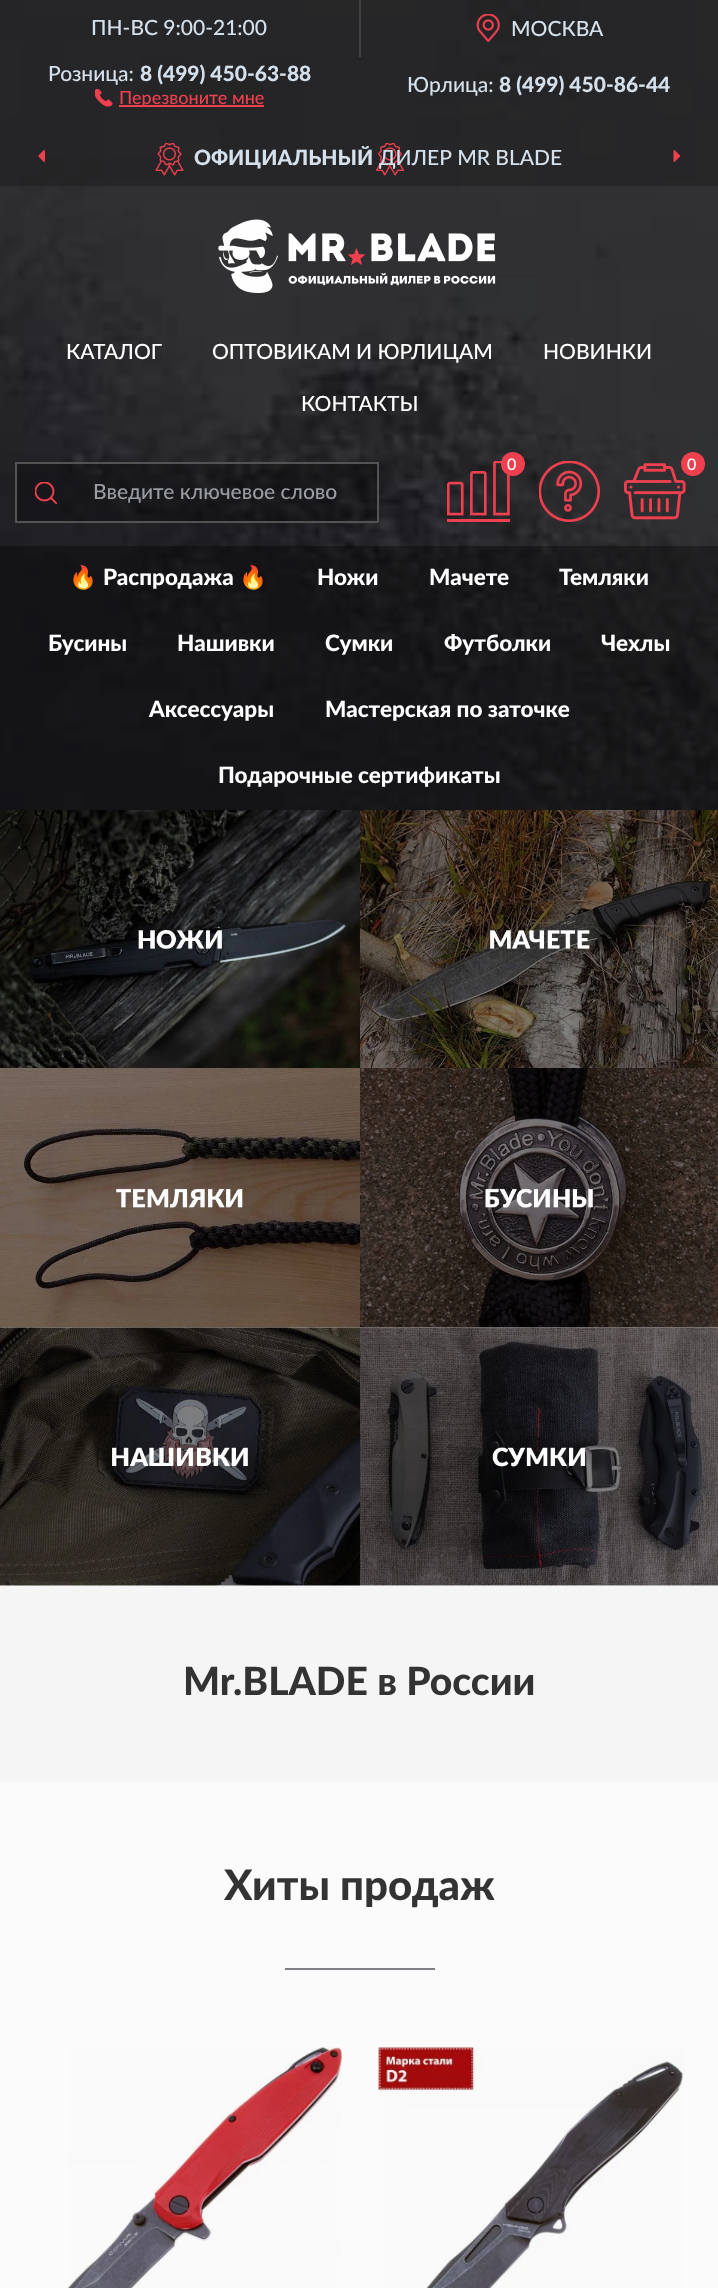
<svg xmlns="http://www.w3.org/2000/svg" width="718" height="2288">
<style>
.a{font:500 21px Lato;fill:#d4e1ec}
.b{font:900 21px Lato;fill:#d4e1ec}
.c{font:500 18px Lato;fill:#ef404f}
.d{font:500 21px Lato;fill:#fff}
.e{font:500 16px Lato;fill:#fff}
.f{font:500 21px Lato;fill:#999ca1}
.g{font:22.5px Noto Color Emoji;fill:#fff}
.h{font:900 22.5px Lato;fill:#fff}
.i{font:900 39px Lato;fill:#333}
.j{font:900 42px Lato;fill:#333}
</style>
<rect width="100%" height="100%" fill="#fff"/>
<image href="1.png" x="0" y="0" width="718" height="810"/>
<path fill="#00000033" d="M0 0h718v186H0z"/>
<path fill="#414042" d="M359 0h2v57H359z"/>
<image href="2.png" x="476" y="14" width="24" height="28"/>
<image href="3.png" x="95" y="89" width="18" height="18"/>
<path fill="#ef404f" d="M119 105h145v2H119z"/>
<image href="4.png" x="155" y="143" width="249" height="33"/>
<image href="5.png" x="38" y="150" width="7" height="12"/>
<image href="6.png" x="673" y="150" width="8" height="12"/>
<image href="7.png" x="218" y="219" width="278" height="74"/>
<image href="8.png" x="447" y="461" width="63" height="61"/>
<circle fill="#ef404f" cx="513" cy="464" r="12"/>
<image href="9.png" x="539" y="461" width="61" height="61"/>
<image href="10.png" x="624" y="463" width="62" height="57"/>
<circle fill="#ef404f" cx="693" cy="464" r="12"/>
<path fill="#0000004a" d="M17 464h58v57H17z"/>
<image href="11.png" x="35" y="482" width="22" height="22"/>
<path fill="#535353" d="M15 462h363v2H15z"/>
<path fill="#535353" d="M15 521h60v2H15z"/>
<path fill="#535353" d="M15 462h2v60H15z"/>
<path fill="#0000004a" d="M75 464h302v57H75z"/>
<path fill="#535353" d="M377 462h2v60H377z"/>
<path fill="#535353" d="M75 521h303v2H75z"/>
<path fill="#00000054" d="M0 546h718v264H0z"/>
<image href="12.png" x="0" y="810" width="360" height="258"/>
<image href="13.png" x="360" y="810" width="358" height="258"/>
<image href="14.png" x="0" y="1068" width="360" height="260"/>
<image href="15.png" x="360" y="1068" width="358" height="260"/>
<image href="16.png" x="0" y="1327" width="360" height="259"/>
<image href="17.png" x="360" y="1327" width="358" height="259"/>
<path fill="#f6f5f5" d="M0 1586h718v196H0z"/>
<path fill="#fbfbfb" d="M0 1782h718v506H0z"/>
<path fill="#7e8085" d="M285 1968h150v2H285z"/>
<image href="18.png" x="67" y="2047" width="275" height="241"/>
<image href="19.png" x="378" y="2047" width="306" height="241"/>
<text class="a" x="91" y="35">ПН-ВС 9:00-21:00</text>
<text class="a" x="511" y="36">МОСКВА</text>
<text class="a" x="48" y="81">Розница:</text>
<text class="b" x="140" y="81">8 (499) 450-63-88</text>
<text class="c" x="119" y="104">Перезвоните мне</text>
<text class="a" x="407" y="92">Юрлица:</text>
<text class="b" x="499" y="92">8 (499) 450-86-44</text>
<text class="b" x="194" y="165">ОФИЦИАЛЬНЫЙ</text>
<text class="a" x="379" y="165">ДИЛЕР MR BLADE</text>
<text class="d" x="66" y="359">КАТАЛОГ</text>
<text class="d" x="212" y="359">ОПТОВИКАМ И ЮРЛИЦАМ</text>
<text class="d" x="543" y="359">НОВИНКИ</text>
<text class="d" x="301" y="411">КОНТАКТЫ</text>
<text class="e" x="507" y="470">0</text>
<text class="e" x="687" y="470">0</text>
<text class="f" x="93" y="499">Введите ключевое слово</text>
<text class="g" x="69" y="585">🔥</text>
<text class="h" x="103" y="585">Распродажа</text>
<text class="g" x="239" y="585">🔥</text>
<text class="h" x="317" y="585">Ножи</text>
<text class="h" x="429" y="585">Мачете</text>
<text class="h" x="559" y="585">Темляки</text>
<text class="h" x="48" y="651">Бусины</text>
<text class="h" x="177" y="651">Нашивки</text>
<text class="h" x="325" y="651">Сумки</text>
<text class="h" x="444" y="651">Футболки</text>
<text class="h" x="601" y="651">Чехлы</text>
<text class="h" x="149" y="717">Аксессуары</text>
<text class="h" x="325" y="717">Мастерская по заточке</text>
<text class="h" x="218" y="783">Подарочные сертификаты</text>
<text class="i" x="183" y="1695">Mr.BLADE в России</text>
<text class="j" x="224" y="1900">Хиты продаж</text>
</svg>
